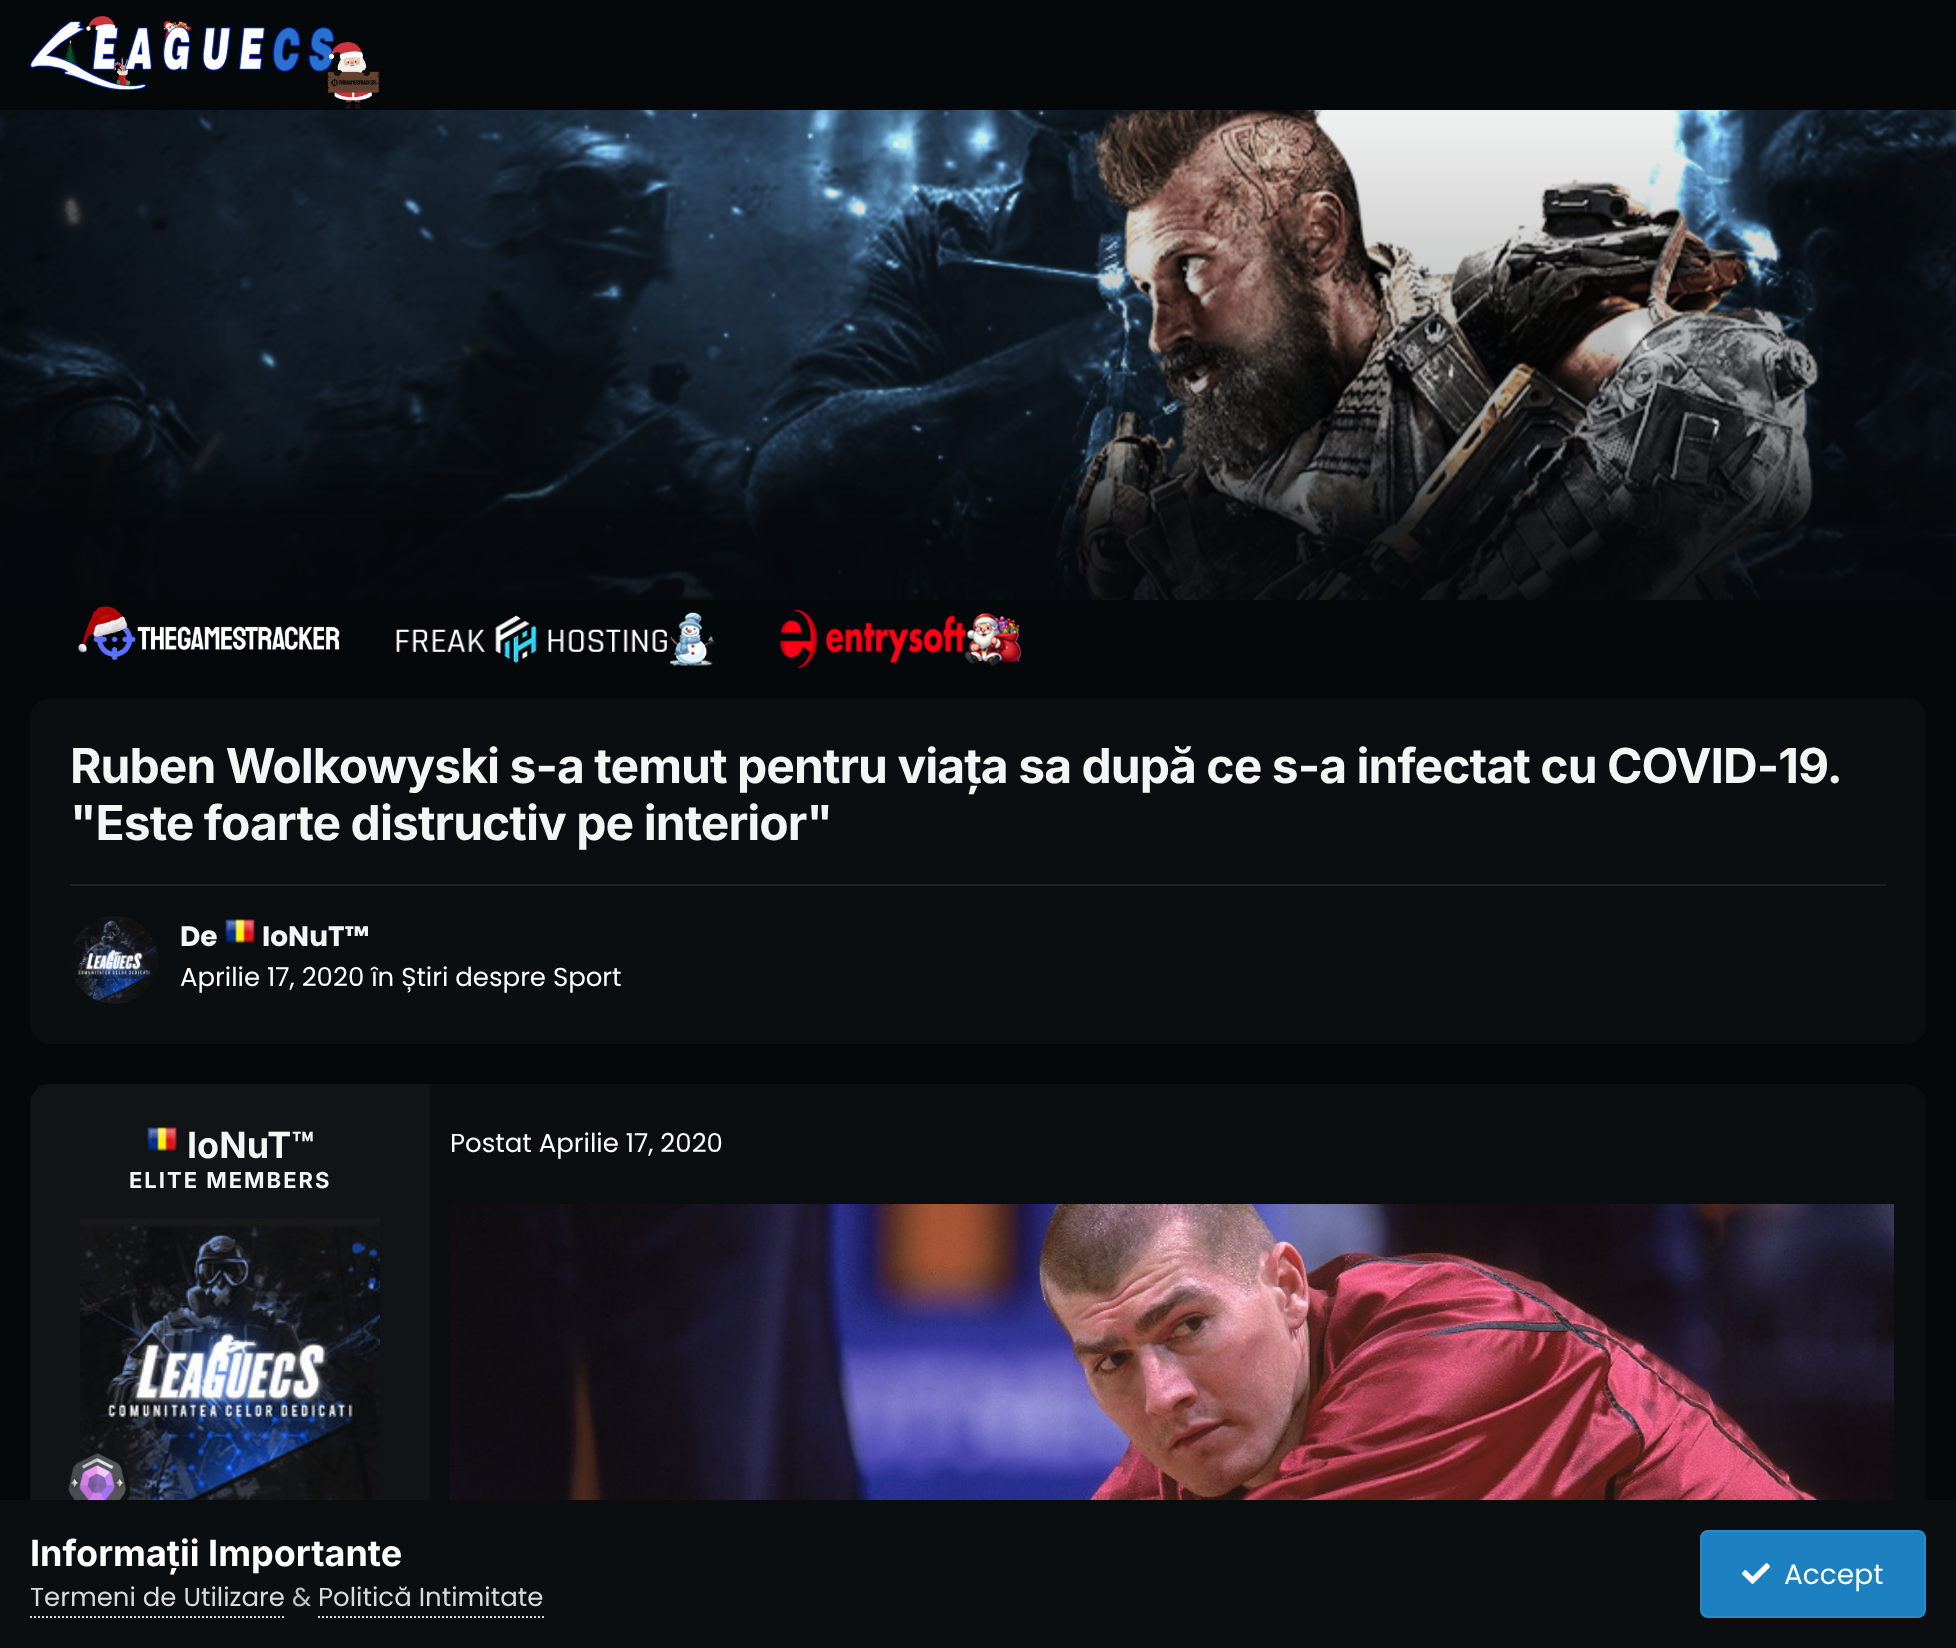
<svg xmlns="http://www.w3.org/2000/svg" width="1956" height="1648">
<style>
.a{font:bold 48px Inter;letter-spacing:-0.95px;fill:#f3f6f4}
.b{font:bold 28px Poppins;fill:#f3f6f4}
.c{font:26px Poppins;fill:#fff}
.d{font:bold 36px Inter;fill:#f3f6f4}
.e{font:bold 22px Inter;letter-spacing:2px;fill:#f3f6f4}
.f{font:bold 36px Inter;fill:#fff}
.g{font:26px Poppins;fill:#dadada}
.h{font:26px Poppins;fill:#c0c0c0}
.i{font:28px Poppins;fill:#fff}
</style>
<rect width="100%" height="100%" fill="#05080b"/>
<image href="1.png" x="0" y="110" width="1956" height="490"/>
<image href="2.png" x="30" y="16" width="349" height="93"/>
<image href="3.png" x="78" y="606" width="262" height="54"/>
<image href="4.png" x="396" y="611" width="319" height="55"/>
<image href="5.png" x="780" y="610" width="242" height="58"/>
<rect fill="#0a0e11" x="30" y="698" width="1896" height="346" rx="20"/>
<path fill="#1d2123" d="M70 884h1816v2H70z"/>
<circle fill="#111417" cx="114" cy="960" r="44"/>
<image href="6.png" x="70" y="916" width="88" height="88"/>
<image href="7.png" x="225" y="919" width="30" height="24"/>
<rect fill="#0a0e11" x="30" y="1084" width="1896" height="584" rx="20"/>
<path fill="#111417" d="M50 1084h380v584h-380c-11 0-20-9-20-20v-544c0-11 9-20 20-20z"/>
<image href="8.png" x="147" y="1127" width="30" height="24"/>
<image href="9.png" x="80" y="1218" width="300" height="282"/>
<image href="10.png" x="68" y="1449" width="62" height="51"/>
<image href="11.png" x="450" y="1204" width="1444" height="296"/>
<path fill="#0a0e11" d="M0 1500h1956v148H0z"/>
<path fill="none" stroke="#dadada" stroke-width="2" stroke-dasharray="2 2" d="M30 1617h254"/>
<path fill="none" stroke="#dadada" stroke-width="2" stroke-dasharray="2 2" d="M318 1617h226"/>
<rect fill="#1d80c0" x="1700" y="1530" width="226" height="88" rx="8"/>
<rect fill="none" stroke="#ffffff12" stroke-width="2" x="1701" y="1531" width="224" height="86" rx="7"/>
<image href="12.png" x="1742" y="1563" width="28" height="21"/>
<text class="a" x="70" y="783">Ruben Wolkowyski s-a temut pentru viața sa după ce s-a infectat cu COVID-19.</text>
<text class="a" x="70" y="840">"Este foarte distructiv pe interior"</text>
<text class="b" x="180" y="946">De</text>
<text class="b" x="262" y="946">IoNuT™</text>
<text class="c" x="180" y="986">Aprilie 17, 2020 în Știri despre Sport</text>
<text class="d" x="187" y="1158">IoNuT™</text>
<text class="e" x="129" y="1188">ELITE MEMBERS</text>
<text class="c" x="450" y="1152">Postat Aprilie 17, 2020</text>
<text class="f" x="30" y="1566">Informații Importante</text>
<text class="g" x="30" y="1606">Termeni de Utilizare</text>
<text class="h" x="292" y="1606">&amp;</text>
<text class="g" x="318" y="1606">Politică Intimitate</text>
<text class="i" x="1784" y="1584">Accept</text>
</svg>
